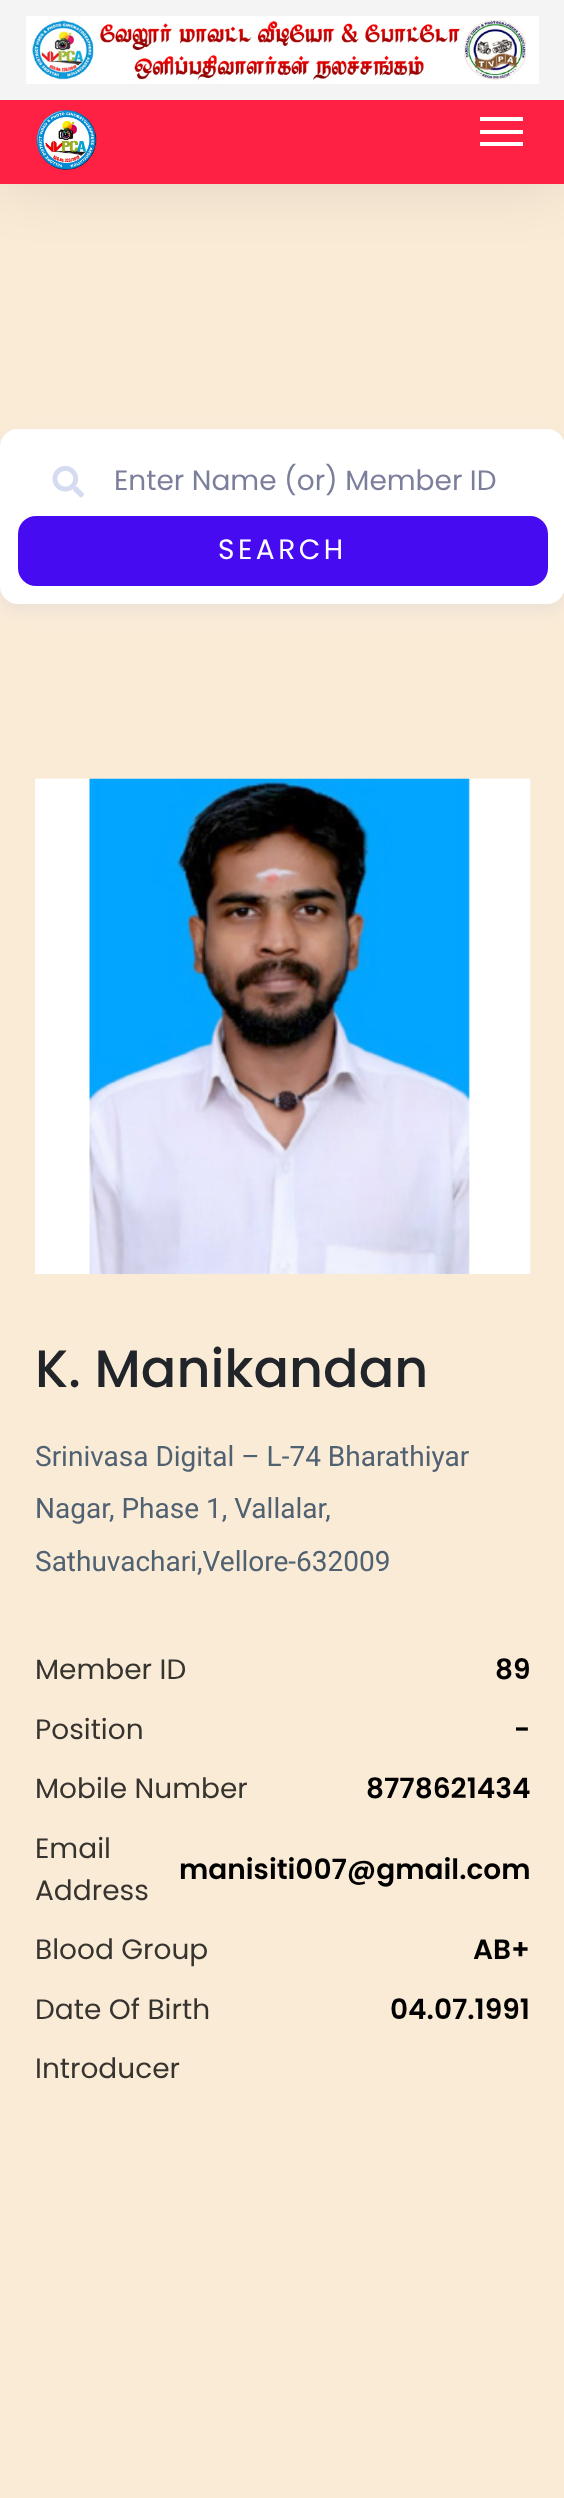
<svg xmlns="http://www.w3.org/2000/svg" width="564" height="2498">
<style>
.a{font:28px Poppins;fill:#7b7f9c}
.b{font:28px Poppins;letter-spacing:3.5px;fill:#fff}
.c{font:500 52.5px Poppins;fill:#212529}
.d{font:28px Roboto;fill:#506172}
.e{font:28px Poppins;fill:#37342f}
.f{font:600 28px Poppins;fill:#000}
</style>
<rect width="100%" height="100%" fill="#faebd7"/>
<path fill="#0000001a" filter="blur(31.5px)" d="M0 100h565v84H0z"/>
<path fill="#f4f4f4" d="M0 0h564v100H0z"/>
<image href="1.png" x="26" y="16" width="513" height="68"/>
<path fill="#ff2143" d="M0 100h564v84H0z"/>
<image href="2.png" x="36" y="110" width="61" height="60"/>
<path fill="#fff" d="M480 117h43v4H480z"/>
<path fill="#fff" d="M480 130h43v4H480z"/>
<path fill="#fff" d="M480 142h43v4H480z"/>
<rect fill="#a5aed526" filter="blur(7px)" y="436" width="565" height="175" rx="18"/>
<rect fill="#fff" y="429" width="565" height="175" rx="18"/>
<image href="3.png" x="52" y="466" width="32" height="32"/>
<rect fill="#470bf1" x="18" y="516" width="530" height="70" rx="18"/>
<image href="4.png" x="35" y="778" width="496" height="496"/>
<text class="a" x="114" y="490">Enter Name (or) Member ID</text>
<text class="b" x="218" y="559">SEARCH</text>
<text class="c" x="35" y="1387">K. Manikandan</text>
<text class="d" x="35" y="1466">Srinivasa Digital – L-74 Bharathiyar</text>
<text class="d" x="35" y="1518">Nagar, Phase 1, Vallalar,</text>
<text class="d" x="35" y="1571">Sathuvachari,Vellore-632009</text>
<text class="e" x="35" y="1679">Member ID</text>
<text class="f" x="495" y="1679">89</text>
<text class="e" x="35" y="1739">Position</text>
<text class="f" x="514" y="1739">-</text>
<text class="e" x="35" y="1798">Mobile Number</text>
<text class="f" x="366" y="1798">8778621434</text>
<text class="e" x="35" y="1858">Email</text>
<text class="e" x="35" y="1900">Address</text>
<text class="f" x="179" y="1879">manisiti007@gmail.com</text>
<text class="e" x="35" y="1959">Blood Group</text>
<text class="f" x="473" y="1959">AB+</text>
<text class="e" x="35" y="2019">Date Of Birth</text>
<text class="f" x="390" y="2019">04.07.1991</text>
<text class="e" x="35" y="2078">Introducer</text>
</svg>
